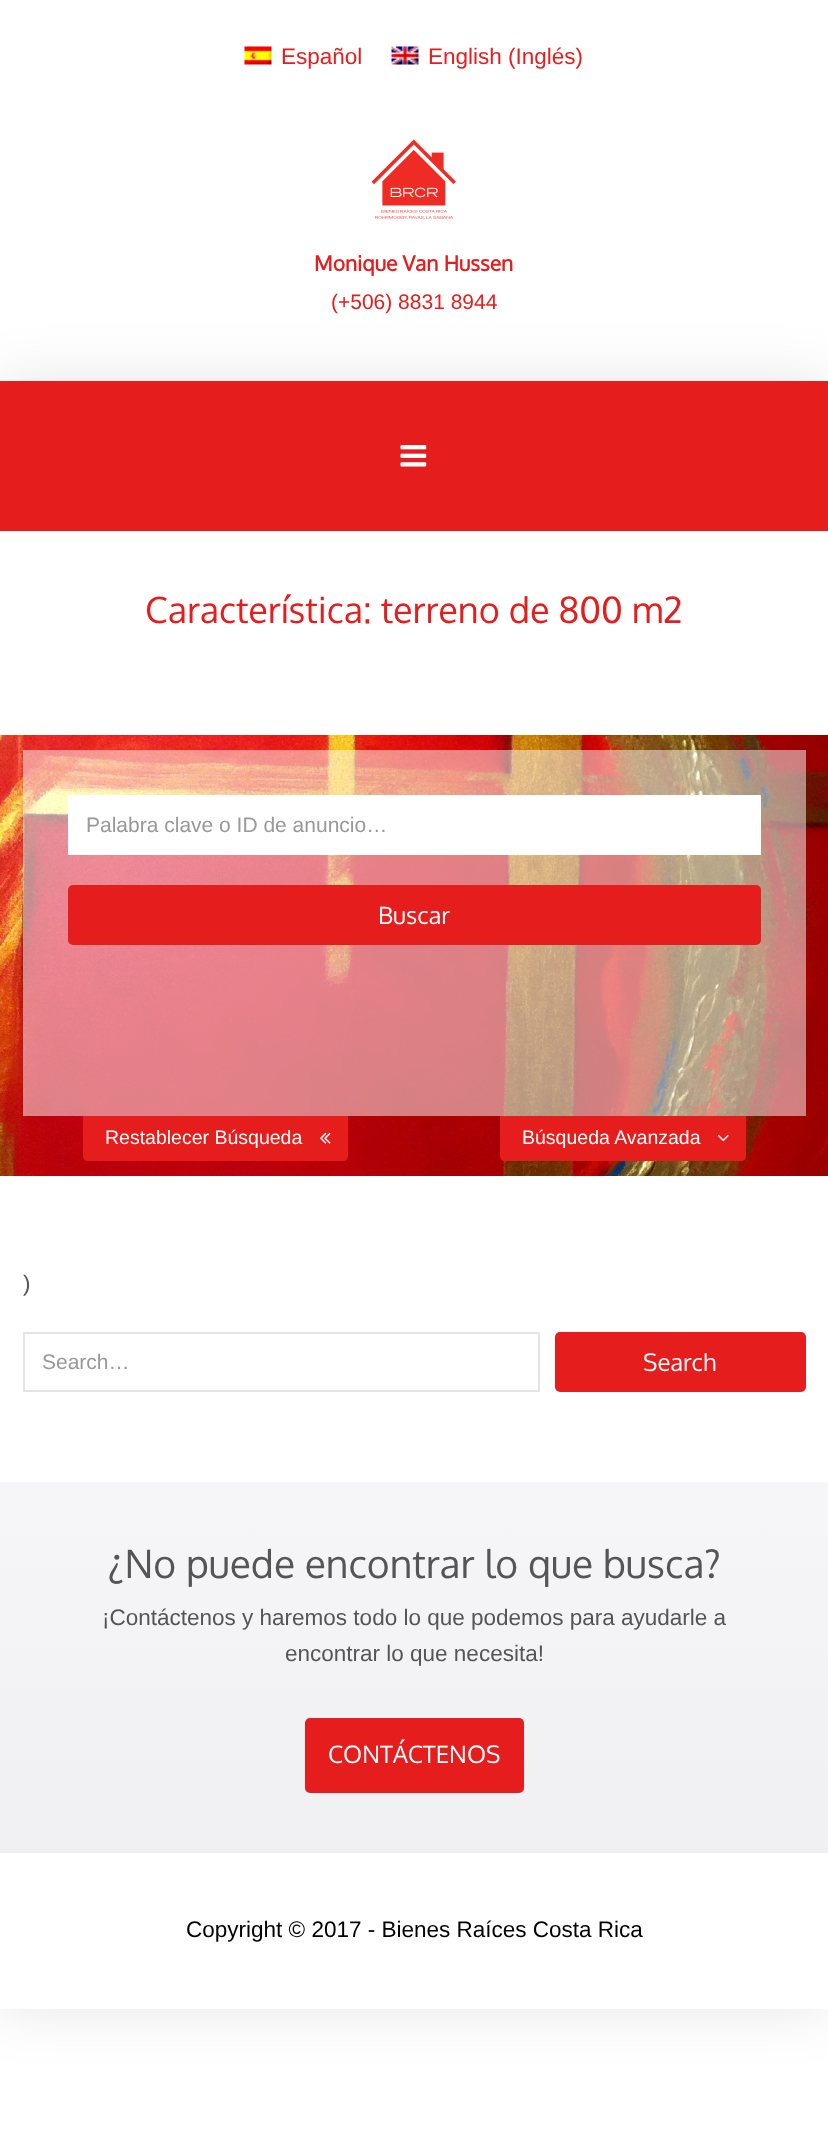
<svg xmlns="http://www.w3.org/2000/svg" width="828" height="2136">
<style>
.a{font:22.5px Liberation Sans;fill:#e51d1d}
.b{font:bold 21px Oxygen;fill:#e51d1d}
.c{font:21px Liberation Sans;fill:#e51d1d}
.d{font:36px Oxygen;fill:#e51d1d}
.e{font:21px Liberation Sans;fill:#999}
.f{font:24px Oxygen;fill:#fff}
.g{font:19.5px Liberation Sans;fill:#fff}
.h{font:22.5px Liberation Sans;fill:#555}
.i{font:39px Oxygen;fill:#555}
.j{font:22.5px Liberation Sans;fill:#000}
</style>
<defs>
<linearGradient id="g1" gradientUnits="userSpaceOnUse" x1="414" y1="1482" x2="414" y2="1853"><stop offset="0" stop-color="#f6f6f8"/><stop offset="1" stop-color="#f0f0f3"/></linearGradient>
</defs>
<rect width="100%" height="100%" fill="#fff"/>
<image href="1.png" x="244" y="46" width="28" height="19"/>
<image href="2.png" x="391" y="46" width="28" height="19"/>
<image href="3.png" x="371" y="139" width="85" height="81"/>
<path fill="#0000001a" filter="blur(30px)" d="M0 381h828v1628H0z"/>
<path fill="#fff" d="M0 531h828v1478H0z"/>
<path fill="#e51d1d" d="M0 381h828v150H0z"/>
<image href="4.png" x="400" y="445" width="27" height="22"/>
<image href="5.png" x="0" y="735" width="828" height="441"/>
<path fill="#ffffff80" d="M23 750h783v366H23z"/>
<path fill="#fff" d="M68 795h693v60H68z"/>
<rect fill="#e51d1d" x="68" y="885" width="693" height="60" rx="5"/>
<path fill="#e51d1d" d="M83 1116h265v40c0 3-2 5-5 5h-255c-3 0-5-2-5-5z"/>
<image href="6.png" x="320" y="1132" width="11" height="12"/>
<path fill="#e51d1d" d="M500 1116h246v40c0 3-2 5-5 5h-236c-3 0-5-2-5-5z"/>
<image href="7.png" x="717" y="1134" width="12" height="8"/>
<path fill="none" stroke="#e4e4e4" stroke-width="2" d="M24 1333h515v58H24z"/>
<rect fill="#e51d1d" x="555" y="1332" width="251" height="60" rx="5"/>
<path fill="url(#g1)" d="M0 1482h828v371H0z"/>
<rect fill="#e51d1d" x="305" y="1718" width="219" height="75" rx="5"/>
<text class="a" x="281" y="64">Español</text>
<text class="a" x="428" y="64">English (Inglés)</text>
<text class="b" x="314" y="271">Monique Van Hussen</text>
<text class="c" x="331" y="309">(+506) 8831 8944</text>
<text class="d" x="145" y="623">Característica: terreno de 800 m2</text>
<text class="e" x="86" y="832">Palabra clave o ID de anuncio…</text>
<text class="f" x="378" y="924">Buscar</text>
<text class="g" x="105" y="1144">Restablecer Búsqueda</text>
<text class="g" x="522" y="1144">Búsqueda Avanzada</text>
<text class="h" x="23" y="1291">)</text>
<text class="e" x="42" y="1369">Search…</text>
<text class="f" x="643" y="1371">Search</text>
<text class="i" x="108" y="1578">¿No puede encontrar lo que busca?</text>
<text class="h" x="102" y="1625">¡Contáctenos y haremos todo lo que podemos para ayudarle a</text>
<text class="h" x="285" y="1661">encontrar lo que necesita!</text>
<text class="f" x="328" y="1763">CONTÁCTENOS</text>
<text class="j" x="186" y="1937">Copyright © 2017 - Bienes Raíces Costa Rica</text>
</svg>
